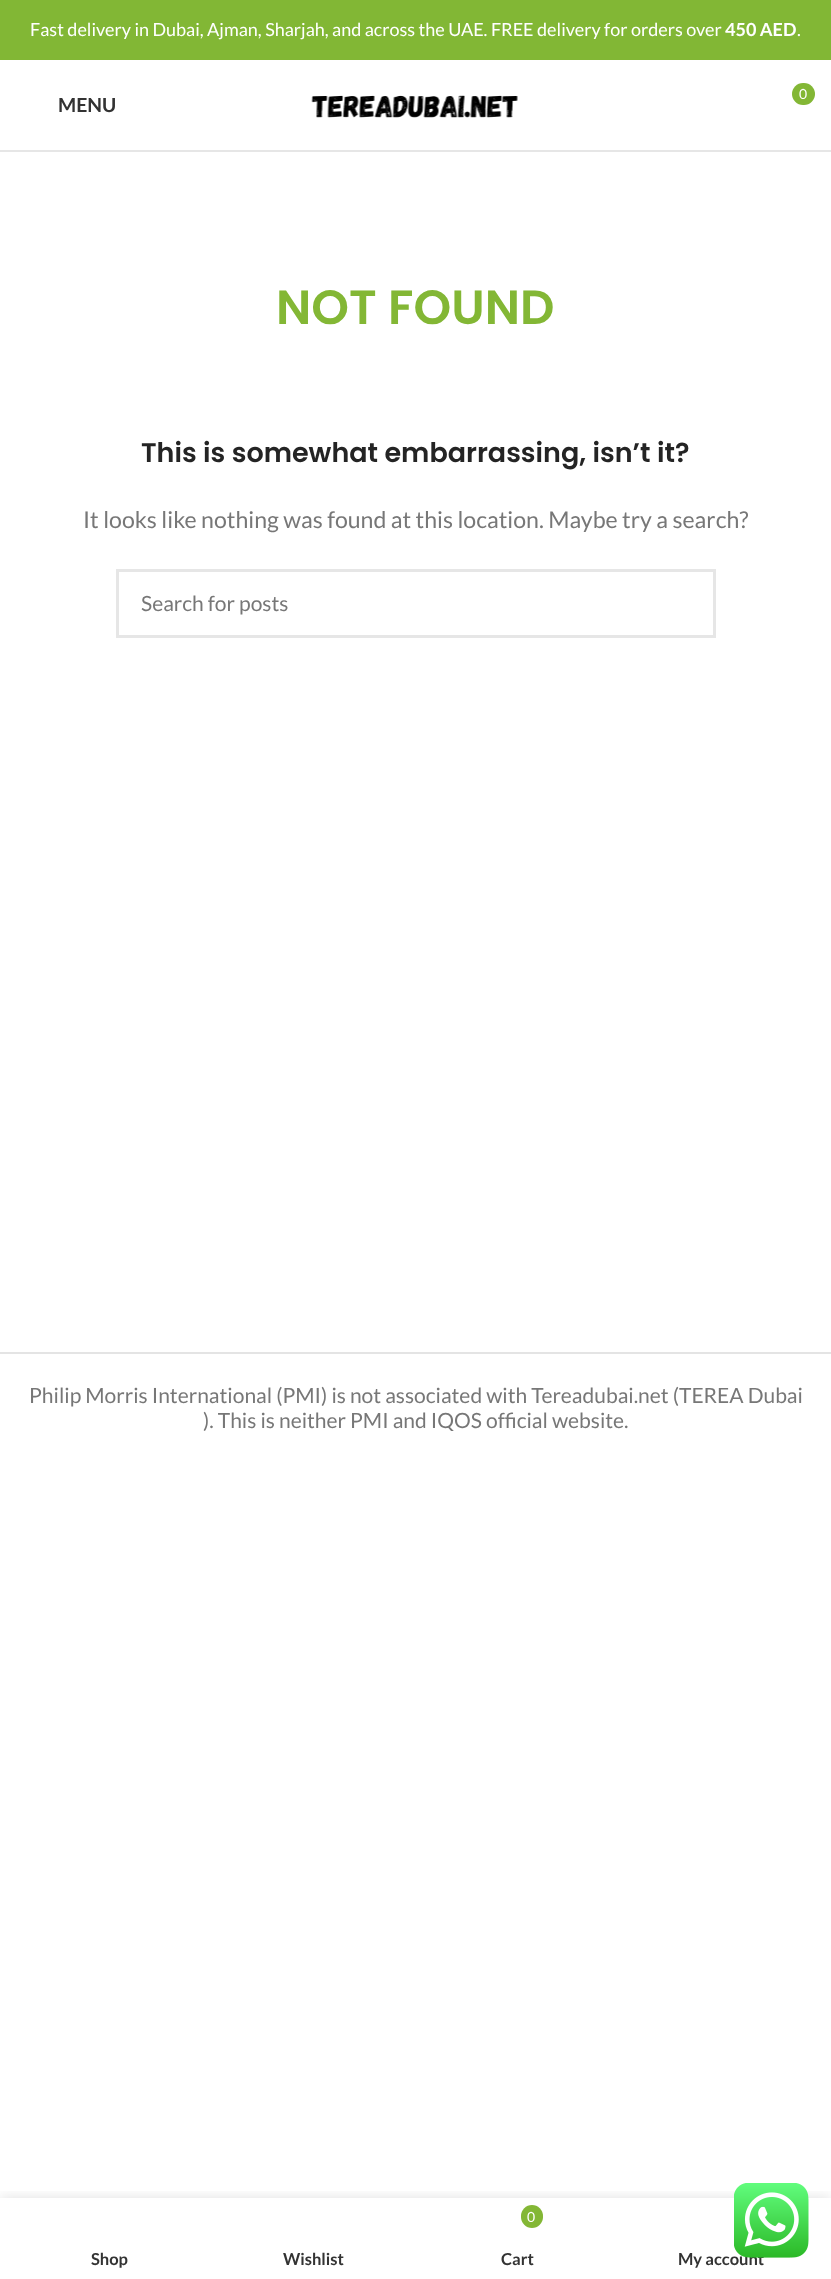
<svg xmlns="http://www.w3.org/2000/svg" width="831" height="2279">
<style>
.a{font:18px Lato;fill:#fff}
.b{font:bold 18px Lato;fill:#fff}
.c{font:bold 19.5px Lato;fill:#333}
.d{font:14px Lato;fill:#fff}
.e{font:600 48px Poppins;fill:#83b735}
.f{font:600 27px Poppins;fill:#242424}
.g{font:23.1px Lato;fill:#777}
.h{font:21px Lato;fill:#777}
.i{font:bold 16.5px Lato;fill:#333}
</style>
<defs>
<clipPath id="clip1"><path d="M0 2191h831v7H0z"/></clipPath>
</defs>
<rect width="100%" height="100%" fill="#fff"/>
<path fill="#82b735" d="M0 0h831v60H0z"/>
<path fill="#e6e6e6" d="M0 150h831v2H0z"/>
<image href="1.png" x="311" y="95" width="207" height="23"/>
<rect fill="#83b735" x="792" y="83" width="23" height="22" rx="11"/>
<path fill="none" stroke="#e6e6e6" stroke-width="3" d="M117.5 570.5h597v66H117.5z"/>
<path fill="#e4e4e4" d="M0 1352h831v2H0z"/>
<g clip-path="url(#clip1)">
<path fill="#0000001f" filter="blur(7px)" d="M0 2198h831v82H0z"/>
</g>
<rect fill="#83b735" x="521" y="2205" width="22" height="23" rx="11"/>
<text class="a" x="30" y="36">Fast delivery in Dubai, Ajman, Sharjah, and across the UAE. FREE delivery for orders over</text>
<text class="b" x="725" y="36">450 AED</text>
<text class="a" x="797" y="36">.</text>
<text class="c" x="58" y="112">MENU</text>
<text class="d" x="799" y="99">0</text>
<text class="e" x="276" y="324">NOT FOUND</text>
<text class="f" x="141" y="462">This is somewhat embarrassing, isn’t it?</text>
<text class="g" x="83" y="528">It looks like nothing was found at this location. Maybe try a search?</text>
<text class="h" x="141" y="611">Search for posts</text>
<text class="h" x="29" y="1403">Philip Morris International (PMI) is not associated with Tereadubai.net (TEREA Dubai</text>
<text class="h" x="203" y="1428">). This is neither PMI and IQOS official website.</text>
<text class="i" x="91" y="2265">Shop</text>
<text class="i" x="283" y="2265">Wishlist</text>
<text class="d" x="527" y="2222">0</text>
<text class="i" x="501" y="2265">Cart</text>
<text class="i" x="678" y="2265">My account</text>
<image href="2.png" x="734" y="2183" width="75" height="75"/>
</svg>
